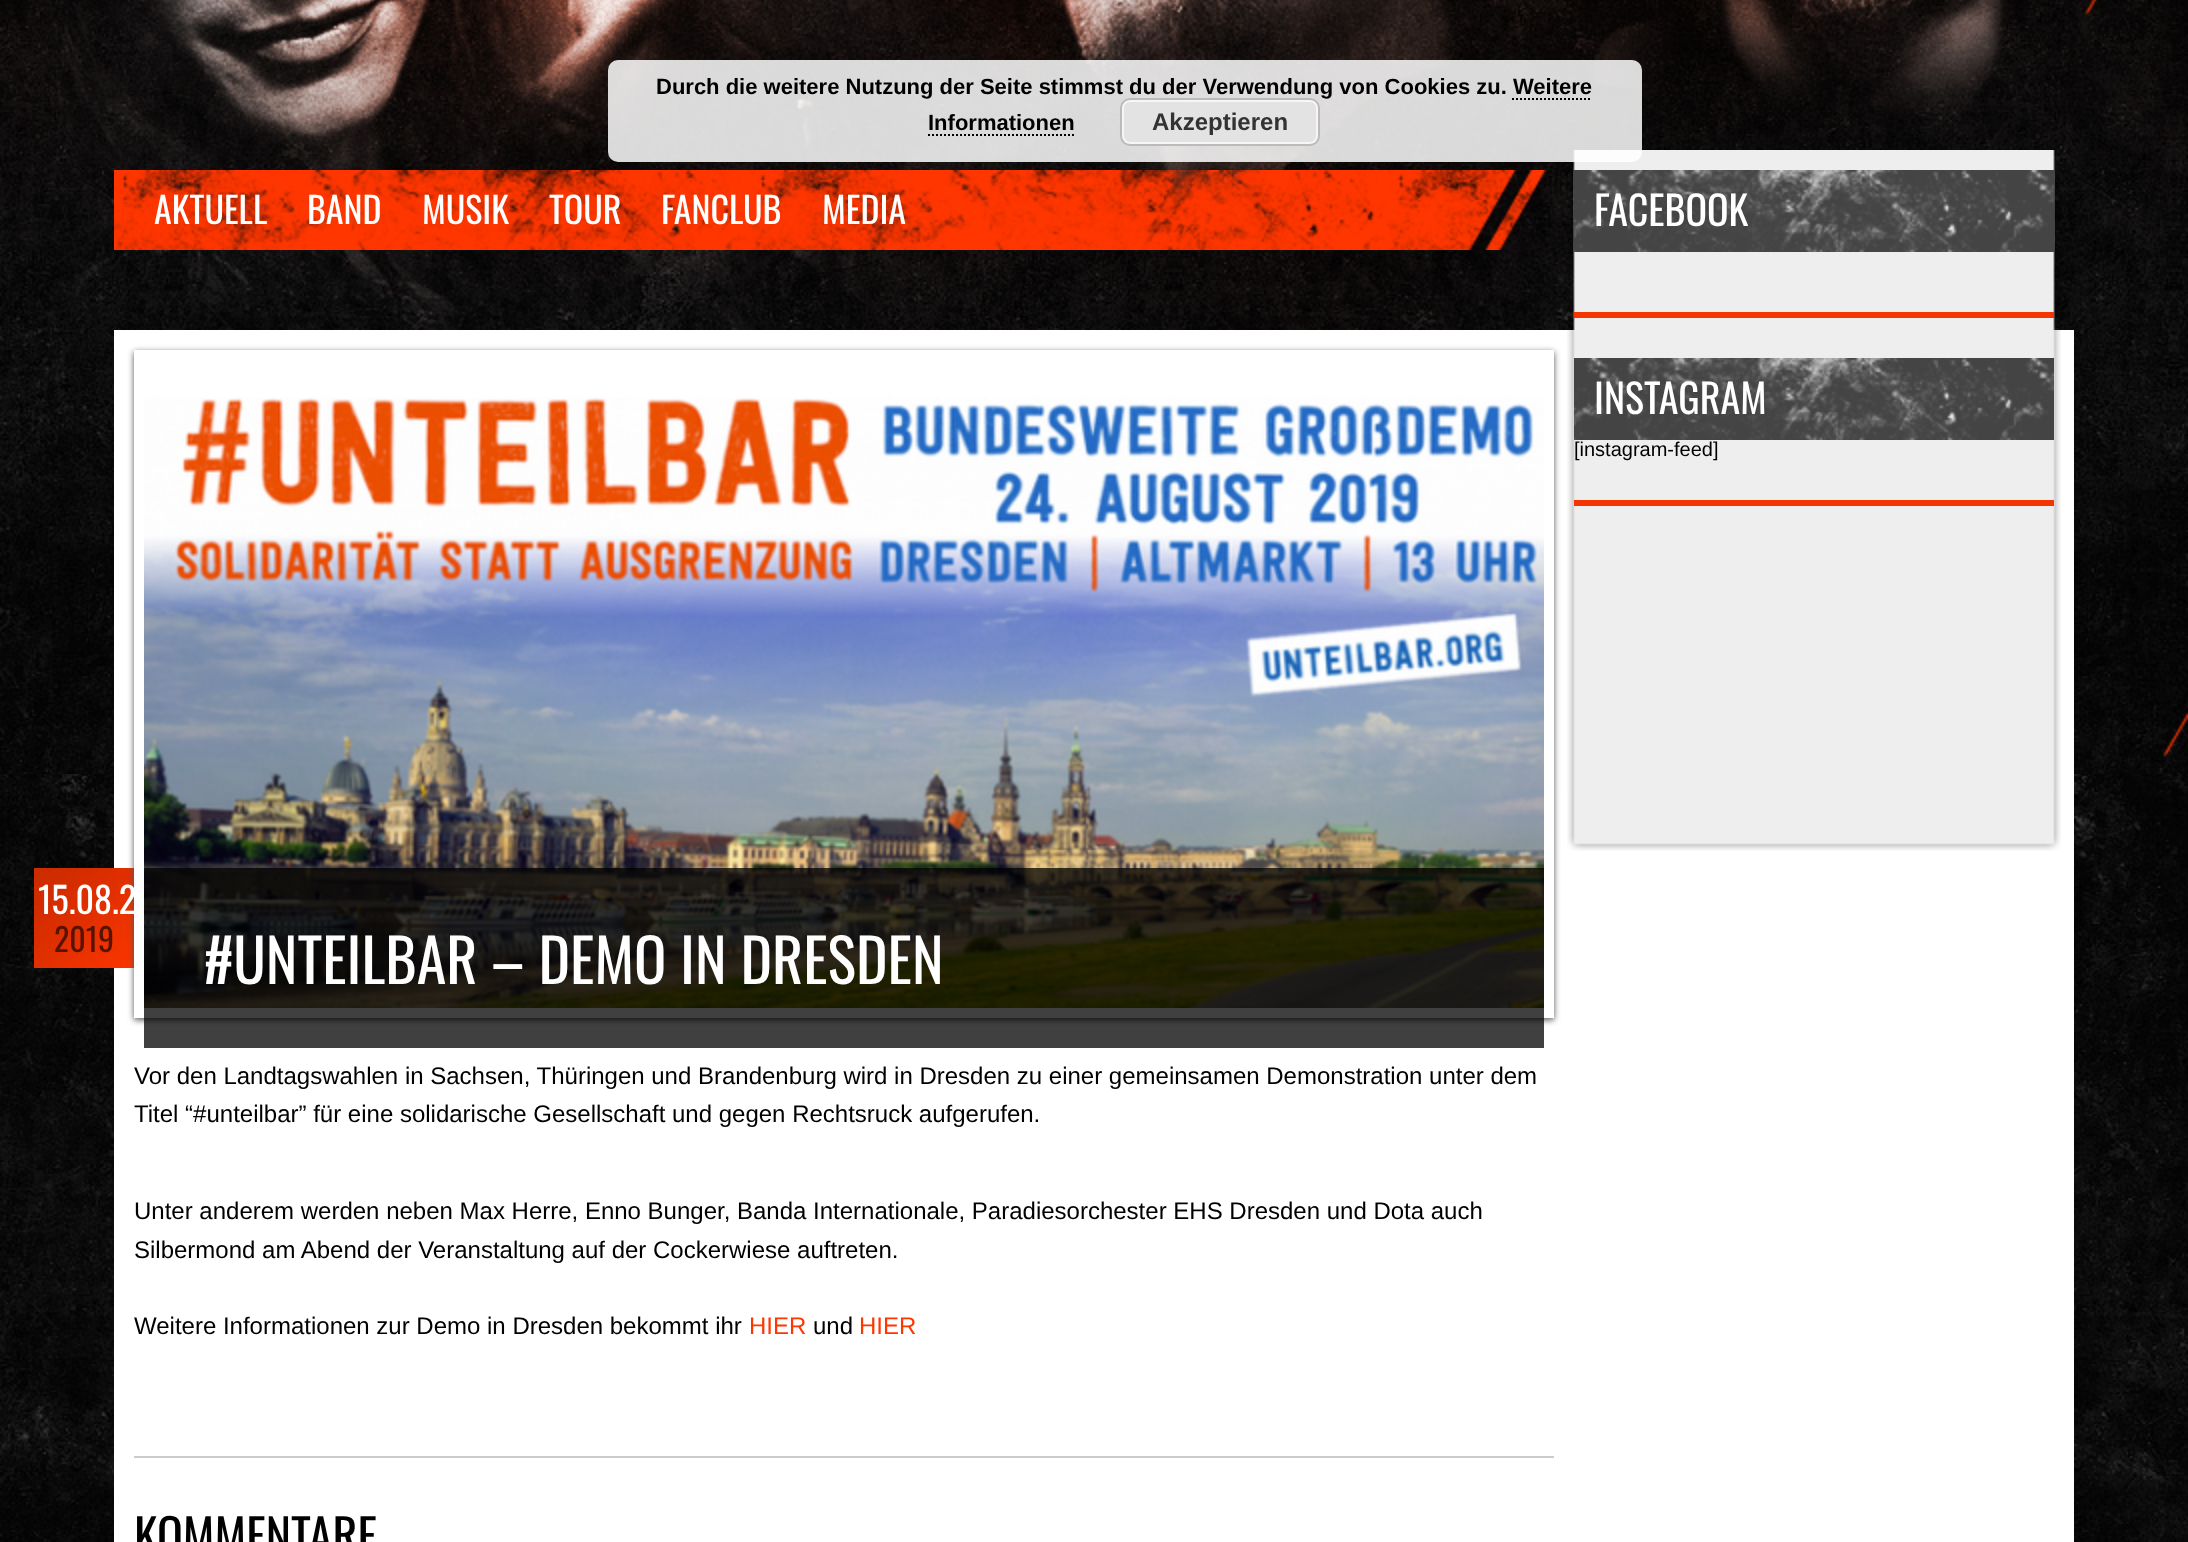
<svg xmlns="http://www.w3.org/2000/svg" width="2188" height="1542">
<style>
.a{font:bold 22px Liberation Sans;fill:#000}
.b{font:bold 24px Liberation Sans;fill:#333}
.c{font:40px Oswald;fill:#fff}
.d{font:20px Arimo;fill:#000}
.e{font:36px Oswald;fill:#fff}
.f{font:32px Oswald;fill:#571300}
.g{font:60px Oswald;fill:#fff}
.h{font:24px Arimo;fill:#000}
.i{font:24px Arimo;fill:#ff3600}
.j{font:48px Oswald;fill:#000}
</style>
<defs>
<clipPath id="clip1"><path d="M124 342h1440v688h-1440zm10 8h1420v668h-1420z" clip-rule="evenodd"/></clipPath>
</defs>
<rect width="100%" height="100%" fill="#fff"/>
<image href="1.png" x="0" y="774" width="2188" height="768"/>
<image href="2.png" x="0" y="0" width="2188" height="774"/>
<path fill="#fff" d="M114 330h1960v1212H114z"/>
<image href="3.png" x="1567" y="150" width="494" height="640"/>
<rect fill="#ffffffd9" x="608" y="60" width="1034" height="102" rx="10"/>
<path fill="none" stroke="#000" stroke-width="2" stroke-dasharray="2 2" d="M1512 99h80"/>
<path fill="none" stroke="#000" stroke-width="2" stroke-dasharray="2 2" d="M928 135h146"/>
<path fill="#f43401" d="M1574 312h480v6H1574z"/>
<image href="4.png" x="1574" y="170" width="480" height="82"/>
<path fill="#f43401" d="M1574 500h480v6H1574z"/>
<image href="5.png" x="1574" y="358" width="480" height="82"/>
<image href="6.png" x="1567" y="790" width="494" height="61"/>
<image href="7.png" x="34" y="868" width="100" height="100"/>
<g clip-path="url(#clip1)">
<path fill="#555" filter="blur(3px)" d="M134 352h1420v668H134z"/>
</g>
<image href="8.png" x="144" y="397" width="1400" height="611"/>
<path fill="#000000bf" d="M144 868h1400v180H144z"/>
<path fill="#ccc" d="M134 1456h1420v2H134z"/>
<image href="9.png" x="114" y="170" width="1433" height="80"/>
<text class="a" x="656" y="94">Durch die weitere Nutzung der Seite stimmst du der Verwendung von Cookies zu. Weitere</text>
<text class="a" x="928" y="130">Informationen</text>
<rect fill="#e3e3e3" x="1120" y="98" width="200" height="48" rx="10"/>
<rect fill="none" stroke="#f6f6f6" stroke-width="2" x="1123" y="101" width="194" height="42" rx="7"/>
<rect fill="none" stroke="#bbb" stroke-width="2" x="1121" y="99" width="198" height="46" rx="9"/>
<text class="b" x="1152" y="130">Akzeptieren</text>
<text class="c" x="1594" y="226">FACEBOOK</text>
<text class="c" x="1594" y="414">INSTAGRAM</text>
<text class="d" x="1574" y="456">[instagram-feed]</text>
<text class="e" x="38" y="914">15.08.2</text>
<text class="f" x="54" y="952">2019</text>
<text class="g" x="204" y="984">#UNTEILBAR – DEMO IN DRESDEN</text>
<text class="h" x="134" y="1084">Vor den Landtagswahlen in Sachsen, Thüringen und Brandenburg wird in Dresden zu einer gemeinsamen Demonstration unter dem</text>
<text class="h" x="134" y="1122">Titel “#unteilbar” für eine solidarische Gesellschaft und gegen Rechtsruck aufgerufen.</text>
<text class="h" x="134" y="1219">Unter anderem werden neben Max Herre, Enno Bunger, Banda Internationale, Paradiesorchester EHS Dresden und Dota auch</text>
<text class="h" x="134" y="1258">Silbermond am Abend der Veranstaltung auf der Cockerwiese auftreten.</text>
<text class="h" x="134" y="1334">Weitere Informationen zur Demo in Dresden bekommt ihr</text>
<text class="i" x="749" y="1334">HIER</text>
<text class="h" x="813" y="1334">und</text>
<text class="i" x="859" y="1334">HIER</text>
<text class="j" x="134" y="1555">KOMMENTARE</text>
<text class="e" x="154" y="224">AKTUELL</text>
<text class="e" x="307" y="224">BAND</text>
<text class="e" x="422" y="224">MUSIK</text>
<text class="e" x="549" y="224">TOUR</text>
<text class="e" x="661" y="224">FANCLUB</text>
<text class="e" x="822" y="224">MEDIA</text>
</svg>
